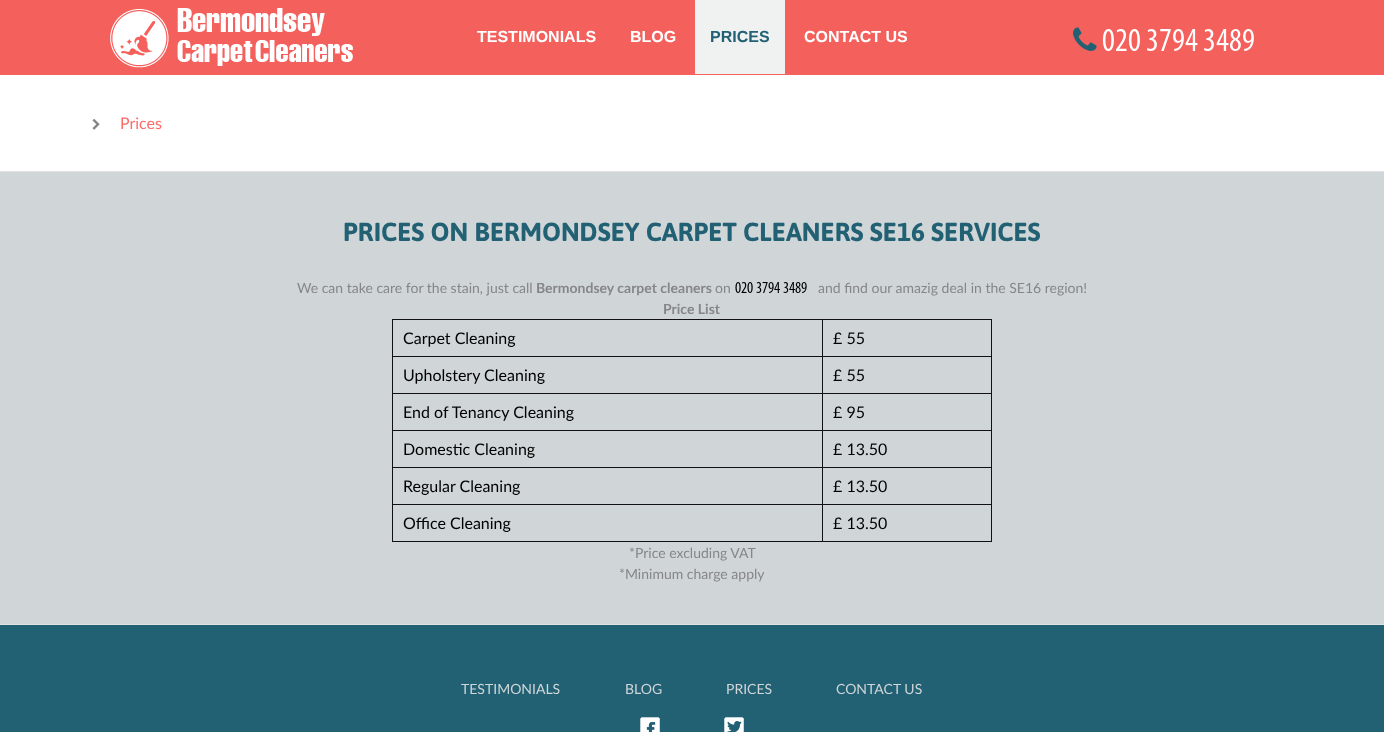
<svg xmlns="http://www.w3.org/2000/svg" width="1384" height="732">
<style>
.a{font:bold 16px Liberation Sans;fill:#fff}
.b{font:bold 16px Liberation Sans;fill:#226174}
.c{font:16px Lato;fill:#ff6b6b}
.d{font:bold 26px Asap;fill:#226174}
.e{font:14px Lato;fill:#868688}
.f{font:bold 14px Lato;fill:#868688}
.g{font:16px Lato;fill:#000}
.h{font:14px Lato;fill:#d0d6d8}
</style>
<rect width="100%" height="100%" fill="#fff"/>
<path fill="#f4605c" d="M0 0h1384v75H0z"/>
<image href="1.png" x="110" y="8" width="243" height="60"/>
<path fill="#f0f2f2" d="M695 0h90v74H695z"/>
<image href="2.png" x="1073" y="27" width="24" height="24"/>
<image href="3.png" x="1102" y="29" width="152" height="22"/>
<image href="4.png" x="92" y="119" width="8" height="11"/>
<path fill="#d0d6d8" d="M0 172h1384v452H0z"/>
<path fill="#e0e0e1" d="M0 171h1384v1H0z"/>
<path fill="#e0e0e1" d="M0 624h1384v1H0z"/>
<image href="5.png" x="735" y="282" width="72" height="11"/>
<path fill="#111" d="M392 319h600v1H392z"/>
<path fill="#111" d="M991 319h1v223H991z"/>
<path fill="#111" d="M392 541h600v1H392z"/>
<path fill="#111" d="M392 319h1v223H392z"/>
<path fill="#111" d="M822 356h170v1H822z"/>
<path fill="#111" d="M822 393h170v1H822z"/>
<path fill="#111" d="M822 430h170v1H822z"/>
<path fill="#111" d="M822 467h170v1H822z"/>
<path fill="#111" d="M822 504h170v1H822z"/>
<path fill="#111" d="M822 504h1v38H822z"/>
<path fill="#111" d="M392 504h431v1H392z"/>
<path fill="#111" d="M822 467h1v38H822z"/>
<path fill="#111" d="M392 467h431v1H392z"/>
<path fill="#111" d="M822 430h1v38H822z"/>
<path fill="#111" d="M392 430h431v1H392z"/>
<path fill="#111" d="M822 393h1v38H822z"/>
<path fill="#111" d="M392 393h431v1H392z"/>
<path fill="#111" d="M822 356h1v38H822z"/>
<path fill="#111" d="M392 356h431v1H392z"/>
<path fill="#111" d="M822 319h1v38H822z"/>
<path fill="#226174" d="M0 625h1384v107H0z"/>
<image href="6.png" x="640" y="717" width="20" height="15"/>
<image href="7.png" x="724" y="717" width="20" height="15"/>
<text class="a" x="477" y="42">TESTIMONIALS</text>
<text class="a" x="630" y="42">BLOG</text>
<text class="b" x="710" y="42">PRICES</text>
<text class="a" x="804" y="42">CONTACT US</text>
<text class="c" x="120" y="129">Prices</text>
<text class="d" x="343" y="241">PRICES ON BERMONDSEY CARPET CLEANERS SE16 SERVICES</text>
<text class="e" x="297" y="293">We can take care for the stain, just call</text>
<text class="f" x="536" y="293">Bermondsey carpet cleaners</text>
<text class="e" x="715" y="293">on</text>
<text class="e" x="818" y="293">and find our amazig deal in the SE16 region!</text>
<text class="f" x="663" y="314">Price List</text>
<text class="g" x="403" y="344">Carpet Cleaning</text>
<text class="g" x="833" y="344">£ 55</text>
<text class="g" x="403" y="381">Upholstery Cleaning</text>
<text class="g" x="833" y="381">£ 55</text>
<text class="g" x="403" y="418">End of Tenancy Cleaning</text>
<text class="g" x="833" y="418">£ 95</text>
<text class="g" x="403" y="455">Domestic Cleaning</text>
<text class="g" x="833" y="455">£ 13.50</text>
<text class="g" x="403" y="492">Regular Cleaning</text>
<text class="g" x="833" y="492">£ 13.50</text>
<text class="g" x="403" y="529">Office Cleaning</text>
<text class="g" x="833" y="529">£ 13.50</text>
<text class="e" x="629" y="558">*Price excluding VAT</text>
<text class="e" x="619" y="579">*Minimum charge apply</text>
<text class="h" x="461" y="694">TESTIMONIALS</text>
<text class="h" x="625" y="694">BLOG</text>
<text class="h" x="726" y="694">PRICES</text>
<text class="h" x="836" y="694">CONTACT US</text>
</svg>
